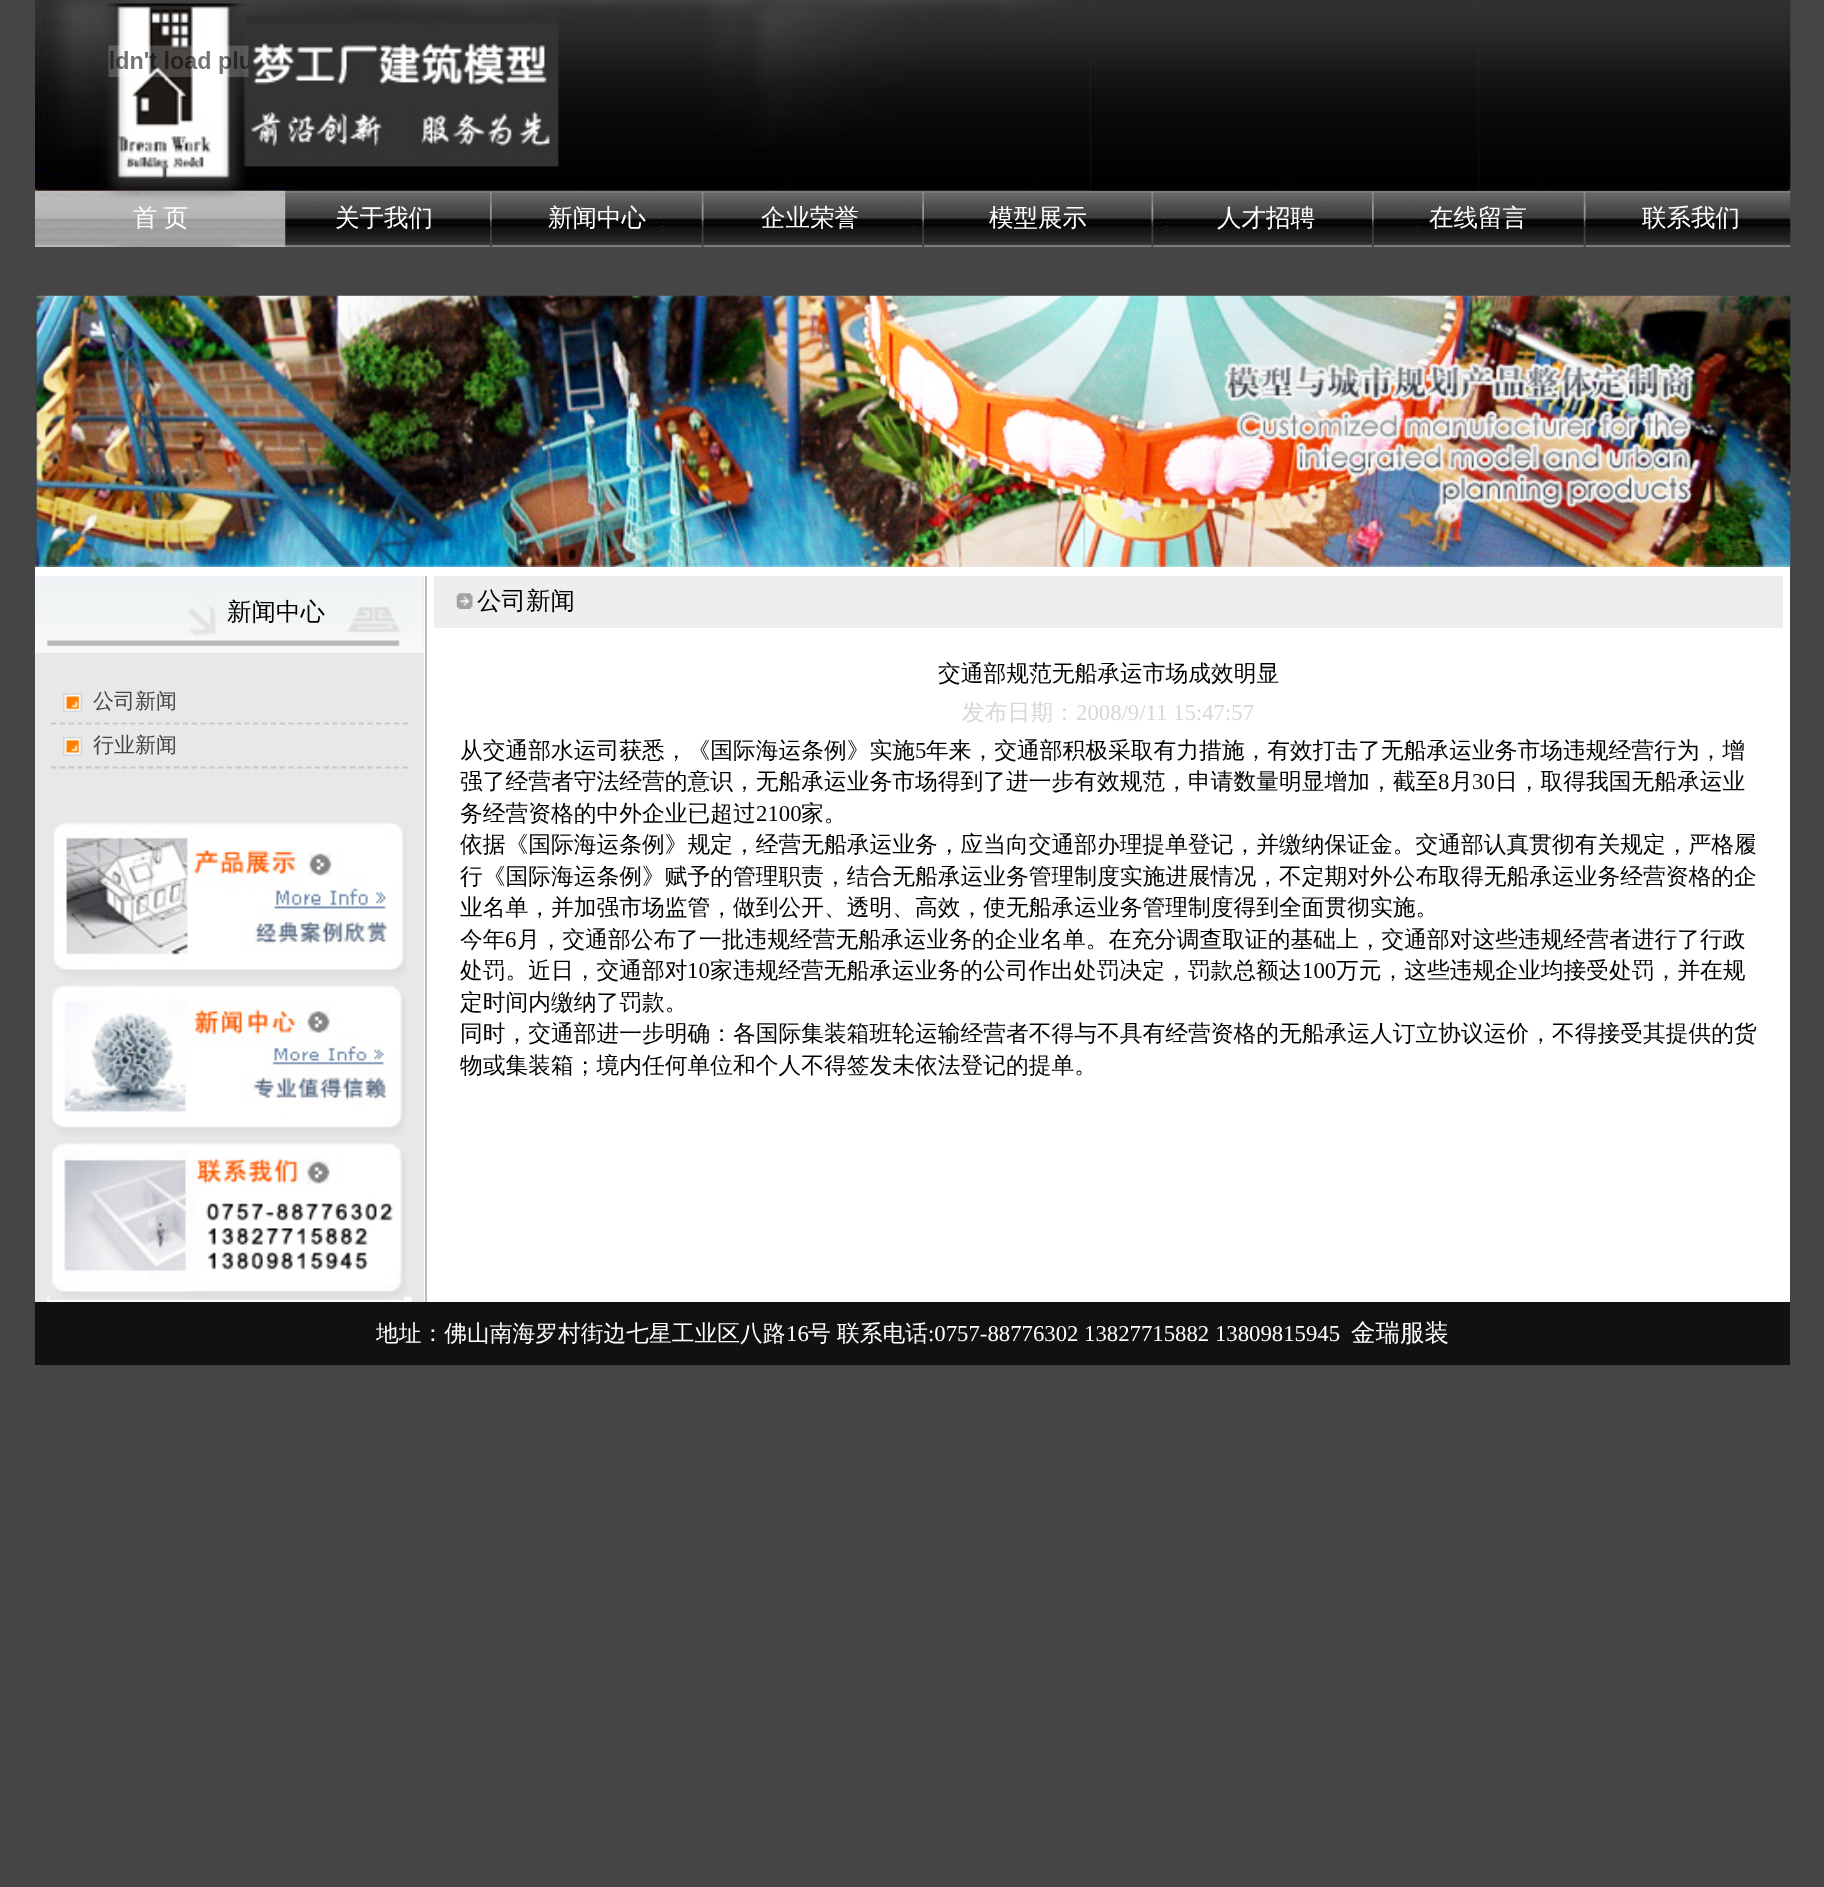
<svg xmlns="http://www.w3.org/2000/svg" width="1824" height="1887">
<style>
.a{font:500 24.5px WenQuanYi Zen Hei;fill:#fff}
.b{font:500 24.5px WenQuanYi Zen Hei;fill:#000}
.c{font:500 21px WenQuanYi Zen Hei;fill:#444}
.d{font:500 22.75px WenQuanYi Zen Hei;fill:#000}
.e{font:500 22.75px WenQuanYi Zen Hei;fill:#d7d7d7}
.f{font:22.75px Liberation Serif;fill:#d7d7d7}
.g{font:22.75px Liberation Serif;fill:#000}
.h{font:500 22.75px WenQuanYi Zen Hei;fill:#fff}
.i{font:22.75px Liberation Serif;fill:#fff}
</style>
<rect width="100%" height="100%" fill="#454545"/>
<image href="1.png" x="35" y="0" width="1056" height="191"/>
<image href="2.png" x="108" y="45" width="141" height="32"/>
<image href="3.png" x="1090" y="0" width="389" height="189"/>
<path fill="#a0a0a0" d="M35 191h1755v56H35z"/>
<image href="6.png" x="35" y="190" width="251" height="57"/>
<image href="7.png" x="285" y="190" width="1506" height="57"/>
<image href="4.png" x="1478" y="0" width="313" height="191"/>
<image href="5.png" x="1090" y="189" width="389" height="2"/>
<image href="8.png" x="490" y="192" width="2" height="55"/>
<image href="9.png" x="701" y="192" width="3" height="55"/>
<image href="10.png" x="922" y="192" width="2" height="55"/>
<image href="11.png" x="1151" y="192" width="3" height="55"/>
<image href="12.png" x="1372" y="192" width="2" height="55"/>
<image href="13.png" x="1583" y="192" width="3" height="55"/>
<image href="14.png" x="35" y="295" width="1756" height="272"/>
<path fill="#fff" d="M35 567h1755v9H35z"/>
<path fill="#fff" d="M424 576h1366v726H424z"/>
<path fill="#e8e8e8" d="M35 576h389v726H35z"/>
<image href="15.png" x="35" y="576" width="389" height="77"/>
<path fill="none" stroke="#c8c8c8" stroke-width="1.8" stroke-dasharray="5.25 3.54" d="M51 723.5h357"/>
<image href="16.png" x="63" y="693" width="20" height="20"/>
<path fill="none" stroke="#c8c8c8" stroke-width="1.8" stroke-dasharray="5.25 3.54" d="M51 767.5h357"/>
<image href="17.png" x="63" y="736" width="20" height="20"/>
<image href="18.png" x="47" y="822" width="365" height="480"/>
<path fill="#bcbcbc" d="M425 576h2v726H425z"/>
<path fill="#eee" d="M434 576h1349v52H434z"/>
<image href="19.png" x="456" y="593" width="17" height="16"/>
<path fill="#111" d="M35 1302h1755v63H35z"/>
<text class="a" x="133" y="226" word-spacing="-1">首 页</text>
<text class="a" x="335" y="226">关于我们</text>
<text class="a" x="548" y="226">新闻中心</text>
<text class="a" x="761" y="226">企业荣誉</text>
<text class="a" x="989" y="226">模型展示</text>
<text class="a" x="1217" y="226">人才招聘</text>
<text class="a" x="1429" y="226">在线留言</text>
<text class="a" x="1642" y="226">联系我们</text>
<text class="b" x="227" y="620">新闻中心</text>
<text class="c" x="93" y="708">公司新闻</text>
<text class="c" x="93" y="752">行业新闻</text>
<text class="b" x="477" y="609">公司新闻</text>
<text class="d" x="938" y="681">交通部规范无船承运市场成效明显</text>
<text class="e" x="962" y="720">发布日期：</text>
<text class="f" x="1076" y="720">2008/9/11 15:47:57</text>
<text class="d" x="460" y="758">从交通部水运司获悉，《国际海运条例》实施</text>
<text class="g" x="915" y="758">5</text>
<text class="d" x="926" y="758">年来，交通部积极采取有力措施，有效打击了无船承运业务市场违规经营行为，增</text>
<text class="d" x="460" y="789">强了经营者守法经营的意识，无船承运业务市场得到了进一步有效规范，申请数量明显增加，截至</text>
<text class="g" x="1438" y="789">8</text>
<text class="d" x="1450" y="789">月</text>
<text class="g" x="1472" y="789">30</text>
<text class="d" x="1495" y="789">日，取得我国无船承运业</text>
<text class="d" x="460" y="821">务经营资格的中外企业已超过</text>
<text class="g" x="756" y="821">2100</text>
<text class="d" x="801" y="821">家。</text>
<text class="d" x="460" y="852">依据《国际海运条例》规定，经营无船承运业务，应当向交通部办理提单登记，并缴纳保证金。交通部认真贯彻有关规定，严格履</text>
<text class="d" x="460" y="884">行《国际海运条例》赋予的管理职责，结合无船承运业务管理制度实施进展情况，不定期对外公布取得无船承运业务经营资格的企</text>
<text class="d" x="460" y="915">业名单，并加强市场监管，做到公开、透明、高效，使无船承运业务管理制度得到全面贯彻实施。</text>
<text class="d" x="460" y="947">今年</text>
<text class="g" x="505" y="947">6</text>
<text class="d" x="517" y="947">月，交通部公布了一批违规经营无船承运业务的企业名单。在充分调查取证的基础上，交通部对这些违规经营者进行了行政</text>
<text class="d" x="460" y="978">处罚。近日，交通部对</text>
<text class="g" x="687" y="978">10</text>
<text class="d" x="710" y="978">家违规经营无船承运业务的公司作出处罚决定，罚款总额达</text>
<text class="g" x="1302" y="978">100</text>
<text class="d" x="1336" y="978">万元，这些违规企业均接受处罚，并在规</text>
<text class="d" x="460" y="1010">定时间内缴纳了罚款。</text>
<text class="d" x="460" y="1041">同时，交通部进一步明确：各国际集装箱班轮运输经营者不得与不具有经营资格的无船承运人订立协议运价，不得接受其提供的货</text>
<text class="d" x="460" y="1073">物或集装箱；境内任何单位和个人不得签发未依法登记的提单。</text>
<text class="h" x="376" y="1341">地址：佛山南海罗村街边七星工业区八路</text>
<text class="i" x="786" y="1341">16</text>
<text class="h" x="808" y="1341">号</text>
<text class="h" x="837" y="1341">联系电话</text>
<text class="i" x="928" y="1341">:0757-88776302 13827715882 13809815945</text>
<text class="a" x="1351" y="1341">金瑞服装</text>
</svg>
